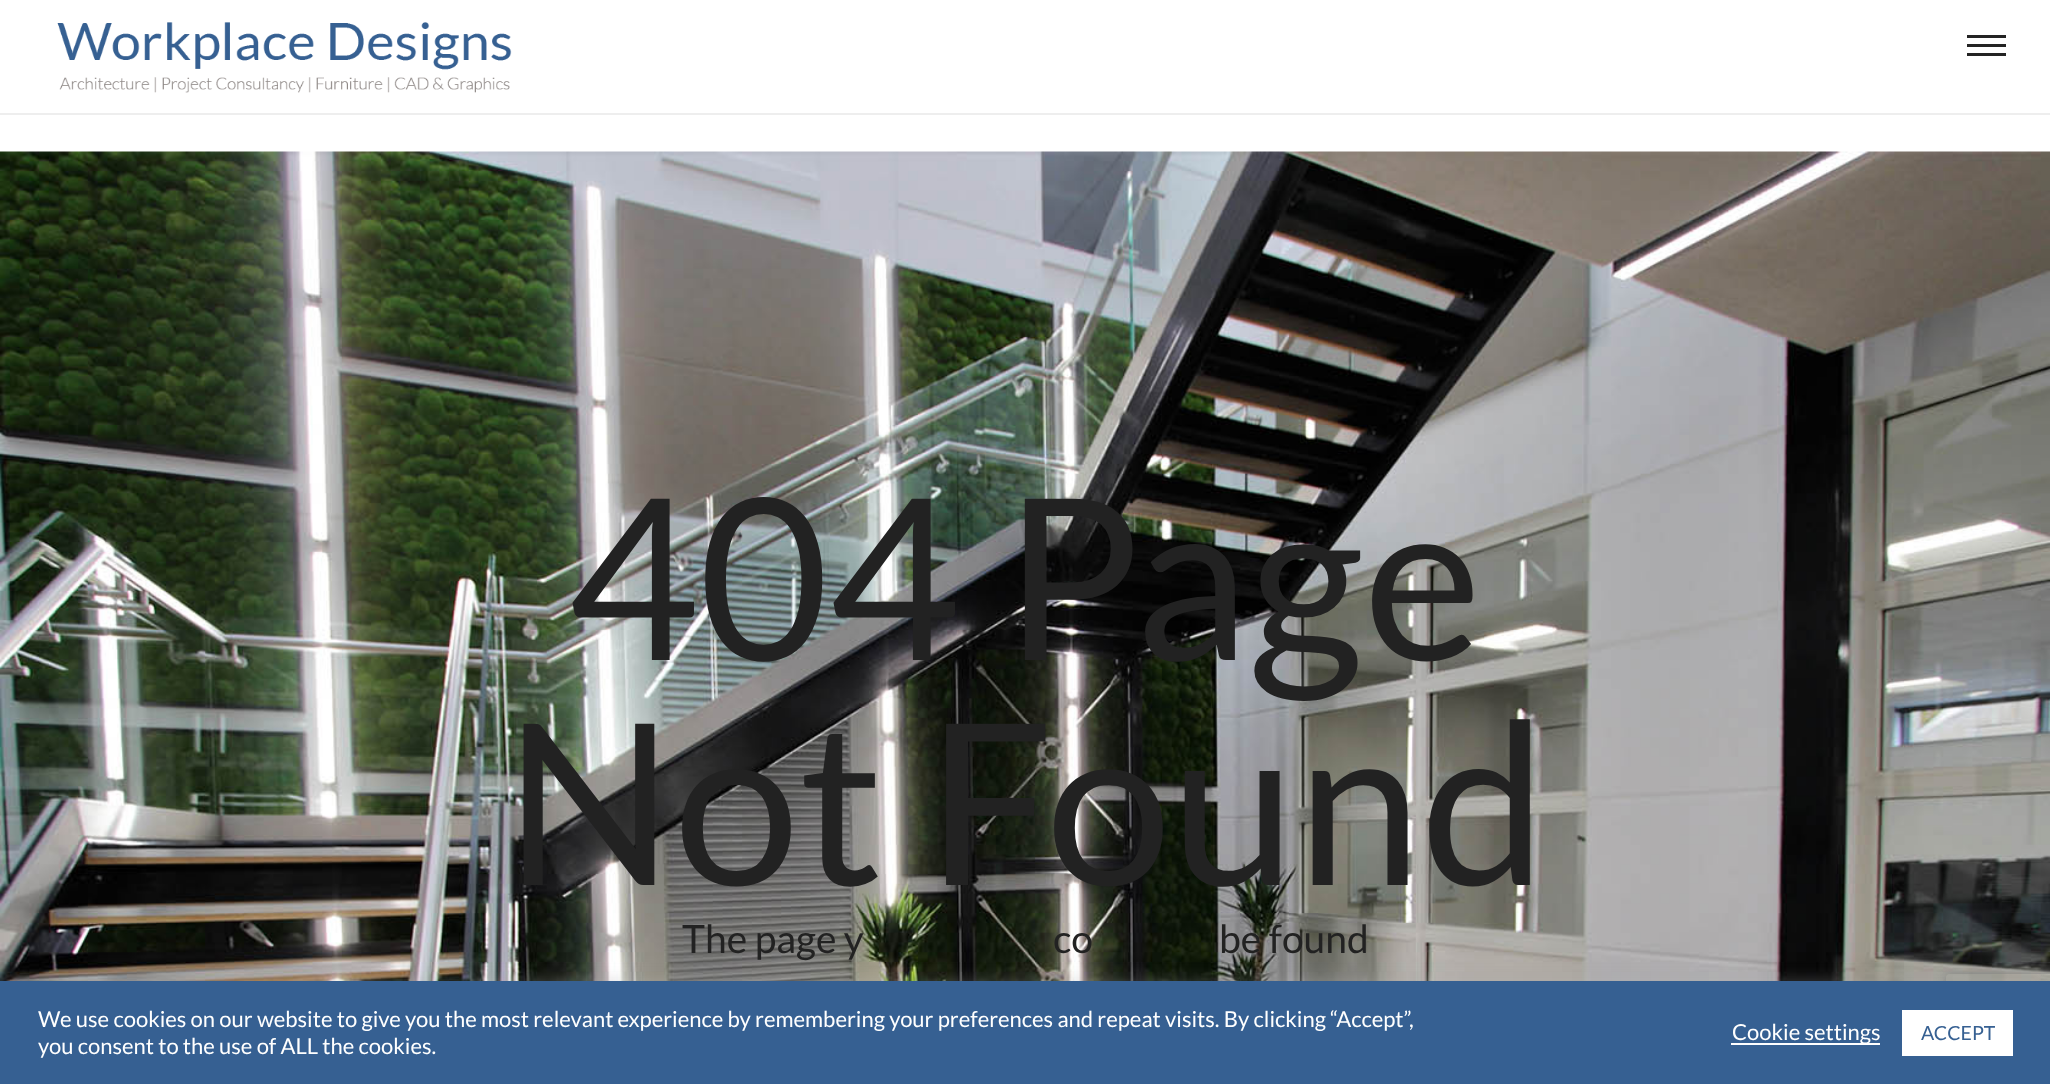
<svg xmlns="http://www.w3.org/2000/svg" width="2050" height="1084">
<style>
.a{font:225px Lato;fill:#222}
.b{font:39px Lato;fill:#222}
.c{font:22px Lato;fill:#fff}
.d{font:19.5px Lato;fill:#366092}
</style>
<defs>
<clipPath id="clip1"><path d="M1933 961h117v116h-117zm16 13h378c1.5 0 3 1.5 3 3v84c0 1.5-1.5 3-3 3h-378c-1.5 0-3-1.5-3-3v-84c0-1.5 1.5-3 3-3z" clip-rule="evenodd"/></clipPath>
</defs>
<rect width="100%" height="100%" fill="#fff"/>
<path fill="#eee" d="M0 113h2050v2H0z"/>
<image href="1.png" x="57" y="22" width="455" height="71"/>
<path fill="#232323" d="M1967 44h39v3H1967z"/>
<path fill="#232323" d="M1967 35h39v3H1967z"/>
<path fill="#232323" d="M1967 53h39v3H1967z"/>
<image href="2.png" x="0" y="151" width="2050" height="830"/>
<g clip-path="url(#clip1)">
<rect fill="#808080" filter="blur(4px)" x="1946" y="974" width="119" height="90" rx="3"/>
</g>
<path fill="#acabab4d" filter="blur(7.5px)" d="M0 980h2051v103H0z"/>
<path fill="#366092" d="M0 981h2050v103H0z"/>
<path fill="#fff" d="M1731 1043h149v2H1731z"/>
<path fill="#fff" d="M1902 1010h111v46H1902z"/>
<text class="a" x="568" y="660">404 Page</text>
<text class="a" x="504" y="885">Not Found</text>
<text class="b" x="682" y="953">The page y</text>
<text class="b" x="1053" y="953">co</text>
<text class="b" x="1219" y="953">be found</text>
<text class="c" x="38" y="1027">We use cookies on our website to give you the most relevant experience by remembering your preferences and repeat visits. By clicking “Accept”,</text>
<text class="c" x="38" y="1054">you consent to the use of ALL the cookies.</text>
<text class="c" x="1732" y="1040">Cookie settings</text>
<text class="d" x="1921" y="1040">ACCEPT</text>
</svg>
